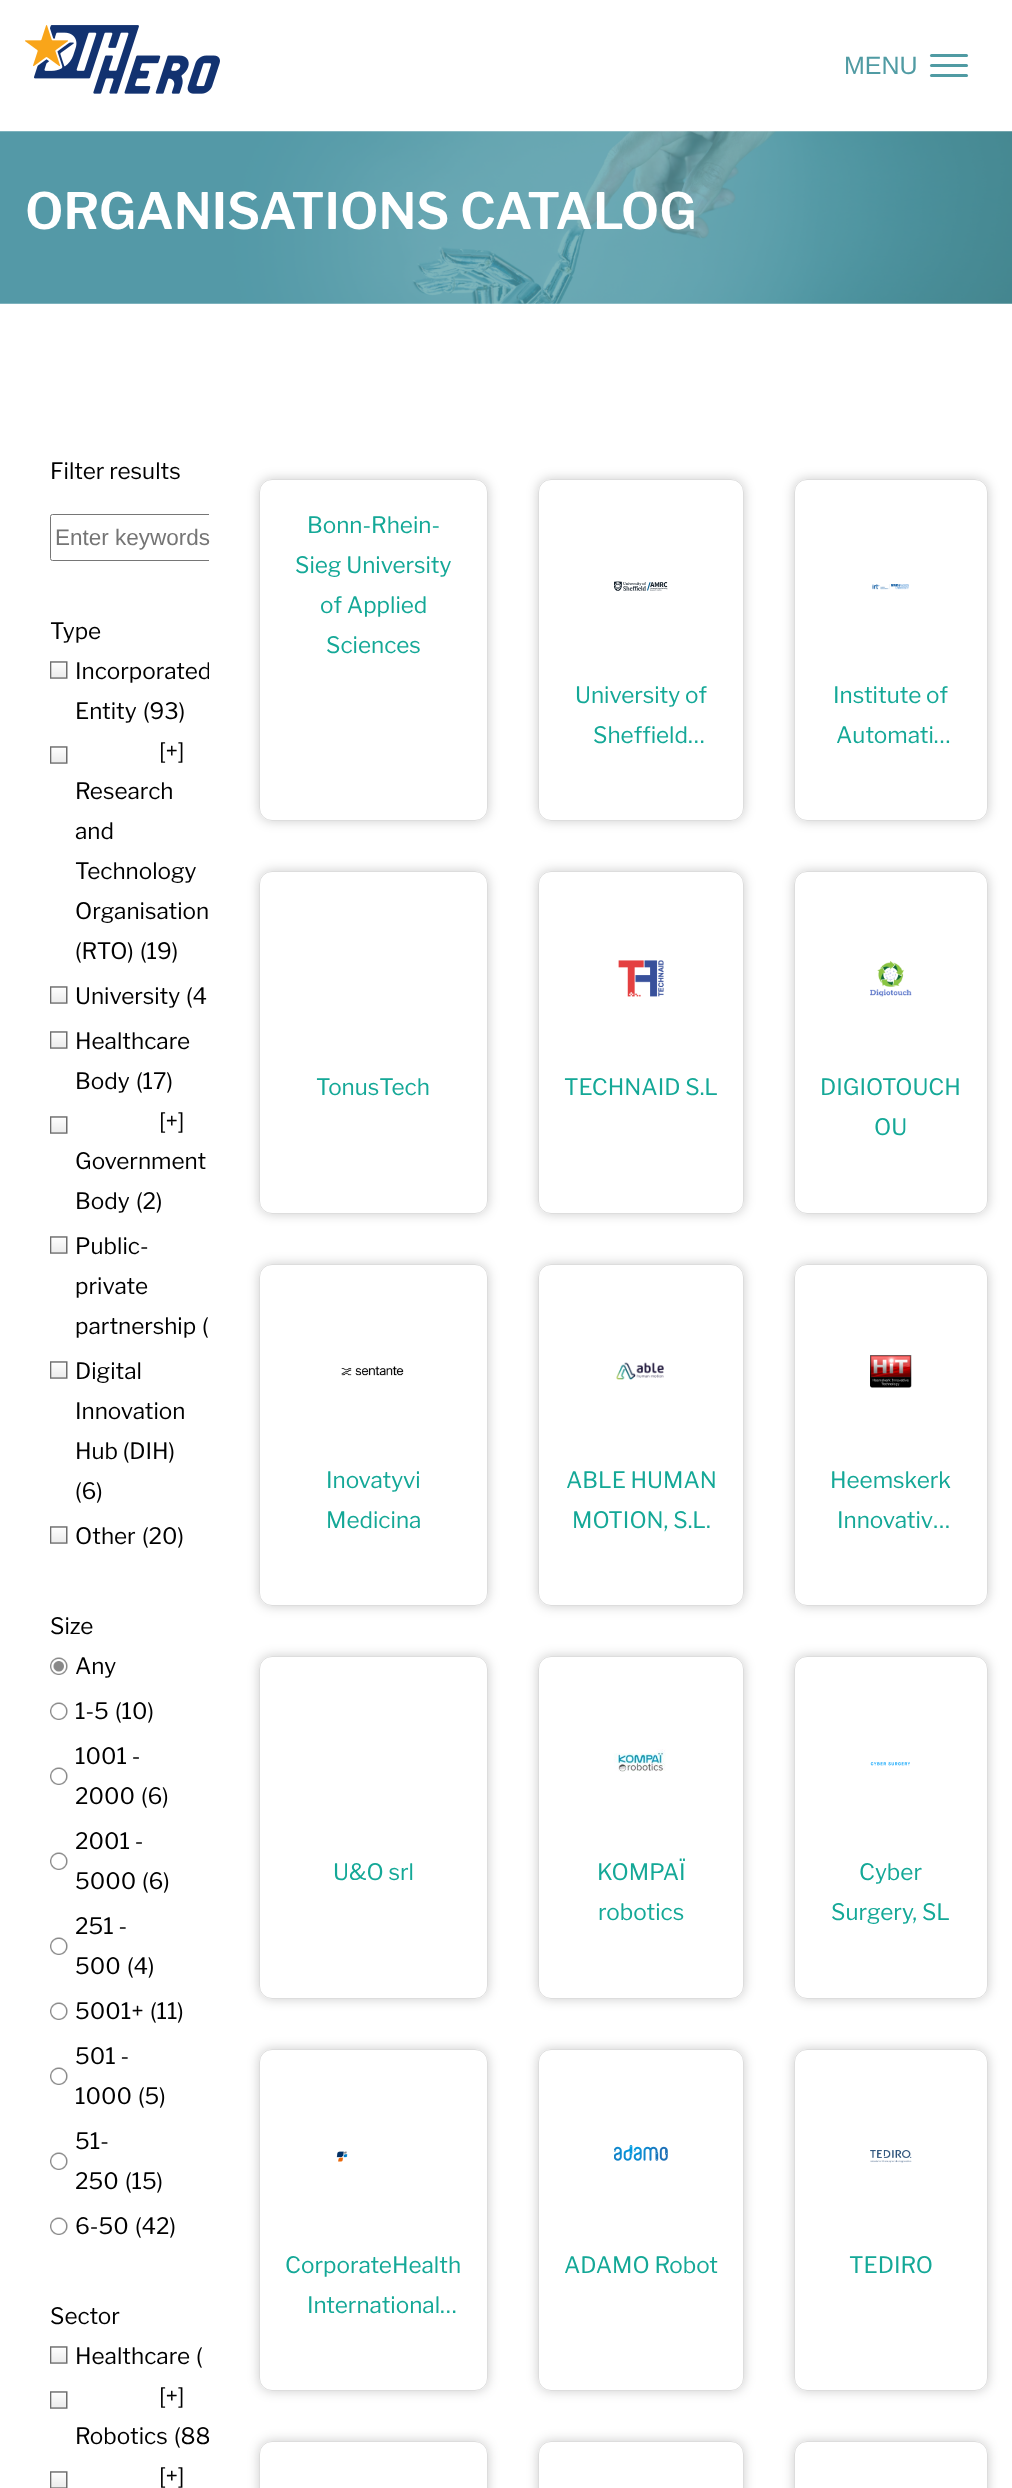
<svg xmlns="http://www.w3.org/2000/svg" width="1012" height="2488">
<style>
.a{font:25px Liberation Sans;fill:#509ba3}
.b{font:600 50px Libre Franklin;fill:#fff}
.c{font:22.5px Libre Franklin;fill:#000}
.d{font:22.5px Libre Franklin;fill:#14a897}
.e{font:22.5px Liberation Sans;fill:#757575}
</style>
<defs>
<clipPath id="clip1"><path d="M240 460h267v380h-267zm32 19h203c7 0 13 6 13 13v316c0 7-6 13-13 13h-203c-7 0-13-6-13-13v-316c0-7 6-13 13-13z" clip-rule="evenodd"/></clipPath>
<clipPath id="clip2"><path d="M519 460h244v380h-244zm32 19h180c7 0 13 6 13 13v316c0 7-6 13-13 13h-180c-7 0-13-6-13-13v-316c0-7 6-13 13-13z" clip-rule="evenodd"/></clipPath>
<clipPath id="clip3"><path d="M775 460h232v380h-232zm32 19h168c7 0 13 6 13 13v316c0 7-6 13-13 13h-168c-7 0-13-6-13-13v-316c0-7 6-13 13-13z" clip-rule="evenodd"/></clipPath>
<clipPath id="clip4"><path d="M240 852h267v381h-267zm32 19h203c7 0 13 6 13 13v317c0 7-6 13-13 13h-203c-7 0-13-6-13-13v-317c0-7 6-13 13-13z" clip-rule="evenodd"/></clipPath>
<clipPath id="clip5"><path d="M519 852h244v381h-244zm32 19h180c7 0 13 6 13 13v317c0 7-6 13-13 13h-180c-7 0-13-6-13-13v-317c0-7 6-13 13-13z" clip-rule="evenodd"/></clipPath>
<clipPath id="clip6"><path d="M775 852h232v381h-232zm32 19h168c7 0 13 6 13 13v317c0 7-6 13-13 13h-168c-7 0-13-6-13-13v-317c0-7 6-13 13-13z" clip-rule="evenodd"/></clipPath>
<clipPath id="clip7"><path d="M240 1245h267v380h-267zm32 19h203c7 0 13 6 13 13v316c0 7-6 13-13 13h-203c-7 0-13-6-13-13v-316c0-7 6-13 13-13z" clip-rule="evenodd"/></clipPath>
<clipPath id="clip8"><path d="M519 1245h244v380h-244zm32 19h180c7 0 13 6 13 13v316c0 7-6 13-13 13h-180c-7 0-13-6-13-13v-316c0-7 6-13 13-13z" clip-rule="evenodd"/></clipPath>
<clipPath id="clip9"><path d="M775 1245h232v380h-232zm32 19h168c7 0 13 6 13 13v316c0 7-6 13-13 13h-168c-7 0-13-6-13-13v-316c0-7 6-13 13-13z" clip-rule="evenodd"/></clipPath>
<clipPath id="clip10"><path d="M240 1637h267v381h-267zm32 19h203c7 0 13 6 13 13v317c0 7-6 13-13 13h-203c-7 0-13-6-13-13v-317c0-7 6-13 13-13z" clip-rule="evenodd"/></clipPath>
<clipPath id="clip11"><path d="M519 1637h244v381h-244zm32 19h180c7 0 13 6 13 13v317c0 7-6 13-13 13h-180c-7 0-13-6-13-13v-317c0-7 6-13 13-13z" clip-rule="evenodd"/></clipPath>
<clipPath id="clip12"><path d="M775 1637h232v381h-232zm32 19h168c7 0 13 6 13 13v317c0 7-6 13-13 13h-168c-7 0-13-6-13-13v-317c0-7 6-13 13-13z" clip-rule="evenodd"/></clipPath>
<clipPath id="clip13"><path d="M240 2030h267v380h-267zm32 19h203c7 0 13 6 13 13v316c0 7-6 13-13 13h-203c-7 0-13-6-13-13v-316c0-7 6-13 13-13z" clip-rule="evenodd"/></clipPath>
<clipPath id="clip14"><path d="M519 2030h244v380h-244zm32 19h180c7 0 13 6 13 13v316c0 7-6 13-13 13h-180c-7 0-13-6-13-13v-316c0-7 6-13 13-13z" clip-rule="evenodd"/></clipPath>
<clipPath id="clip15"><path d="M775 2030h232v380h-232zm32 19h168c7 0 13 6 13 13v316c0 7-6 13-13 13h-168c-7 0-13-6-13-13v-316c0-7 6-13 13-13z" clip-rule="evenodd"/></clipPath>
<clipPath id="clip16"><path d="M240 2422h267v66h-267zm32 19h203c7 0 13 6 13 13v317c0 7-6 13-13 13h-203c-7 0-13-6-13-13v-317c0-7 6-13 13-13z" clip-rule="evenodd"/></clipPath>
<clipPath id="clip17"><path d="M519 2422h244v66h-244zm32 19h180c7 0 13 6 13 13v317c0 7-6 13-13 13h-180c-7 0-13-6-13-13v-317c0-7 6-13 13-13z" clip-rule="evenodd"/></clipPath>
<clipPath id="clip18"><path d="M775 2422h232v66h-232zm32 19h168c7 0 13 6 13 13v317c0 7-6 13-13 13h-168c-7 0-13-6-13-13v-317c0-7 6-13 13-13z" clip-rule="evenodd"/></clipPath>
<clipPath id="clip19"><path d="M25 429h184v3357H25z"/></clipPath>
</defs>
<rect width="100%" height="100%" fill="#fff"/>
<image href="1.png" x="25" y="25" width="195" height="69"/>
<rect fill="#509ba3" x="930" y="54" width="38" height="3" rx="1.5"/>
<rect fill="#509ba3" x="930" y="64" width="38" height="3" rx="1.5"/>
<rect fill="#509ba3" x="930" y="74" width="38" height="3" rx="1.5"/>
<image href="2.png" x="0" y="131" width="1012" height="173"/>
<image href="3.png" x="50" y="661" width="18" height="18"/>
<image href="3.png" x="50" y="746" width="18" height="18"/>
<image href="3.png" x="50" y="986" width="18" height="18"/>
<image href="3.png" x="50" y="1031" width="18" height="18"/>
<image href="3.png" x="50" y="1116" width="18" height="18"/>
<image href="3.png" x="50" y="1236" width="18" height="18"/>
<image href="3.png" x="50" y="1361" width="18" height="18"/>
<image href="3.png" x="50" y="1526" width="18" height="18"/>
<image href="4.png" x="50" y="1657" width="18" height="18"/>
<image href="5.png" x="50" y="1702" width="18" height="18"/>
<image href="5.png" x="50" y="1767" width="18" height="18"/>
<image href="5.png" x="50" y="1852" width="18" height="18"/>
<image href="5.png" x="50" y="1937" width="18" height="18"/>
<image href="5.png" x="50" y="2002" width="18" height="18"/>
<image href="5.png" x="50" y="2067" width="18" height="18"/>
<image href="5.png" x="50" y="2152" width="18" height="18"/>
<image href="5.png" x="50" y="2217" width="18" height="18"/>
<image href="3.png" x="50" y="2346" width="18" height="18"/>
<image href="6.png" x="50" y="2471" width="18" height="17"/>
<image href="3.png" x="50" y="2391" width="18" height="18"/>
<g clip-path="url(#clip1)">
<rect fill="#00000033" filter="blur(6px)" x="259" y="479" width="229" height="342" rx="13"/>
</g>
<rect fill="none" stroke="#ddd" x="259.5" y="479.5" width="228" height="341" rx="12.5"/>
<g clip-path="url(#clip2)">
<rect fill="#00000033" filter="blur(6px)" x="538" y="479" width="206" height="342" rx="13"/>
</g>
<rect fill="none" stroke="#ddd" x="538.5" y="479.5" width="205" height="341" rx="12.5"/>
<image href="7.png" x="614" y="581" width="54" height="10"/>
<g clip-path="url(#clip3)">
<rect fill="#00000033" filter="blur(6px)" x="794" y="479" width="194" height="342" rx="13"/>
</g>
<rect fill="none" stroke="#ddd" x="794.5" y="479.5" width="193" height="341" rx="12.5"/>
<image href="8.png" x="872" y="584" width="37" height="6"/>
<g clip-path="url(#clip4)">
<rect fill="#00000033" filter="blur(6px)" x="259" y="871" width="229" height="343" rx="13"/>
</g>
<rect fill="none" stroke="#ddd" x="259.5" y="871.5" width="228" height="342" rx="12.5"/>
<g clip-path="url(#clip5)">
<rect fill="#00000033" filter="blur(6px)" x="538" y="871" width="206" height="343" rx="13"/>
</g>
<rect fill="none" stroke="#ddd" x="538.5" y="871.5" width="205" height="342" rx="12.5"/>
<image href="9.png" x="618" y="960" width="46" height="37"/>
<g clip-path="url(#clip6)">
<rect fill="#00000033" filter="blur(6px)" x="794" y="871" width="194" height="343" rx="13"/>
</g>
<rect fill="none" stroke="#ddd" x="794.5" y="871.5" width="193" height="342" rx="12.5"/>
<image href="10.png" x="870" y="961" width="42" height="36"/>
<g clip-path="url(#clip7)">
<rect fill="#00000033" filter="blur(6px)" x="259" y="1264" width="229" height="342" rx="13"/>
</g>
<rect fill="none" stroke="#ddd" x="259.5" y="1264.5" width="228" height="341" rx="12.5"/>
<image href="11.png" x="341" y="1366" width="63" height="10"/>
<g clip-path="url(#clip8)">
<rect fill="#00000033" filter="blur(6px)" x="538" y="1264" width="206" height="342" rx="13"/>
</g>
<rect fill="none" stroke="#ddd" x="538.5" y="1264.5" width="205" height="341" rx="12.5"/>
<image href="12.png" x="616" y="1362" width="48" height="18"/>
<g clip-path="url(#clip9)">
<rect fill="#00000033" filter="blur(6px)" x="794" y="1264" width="194" height="342" rx="13"/>
</g>
<rect fill="none" stroke="#ddd" x="794.5" y="1264.5" width="193" height="341" rx="12.5"/>
<image href="13.png" x="870" y="1355" width="42" height="33"/>
<g clip-path="url(#clip10)">
<rect fill="#00000033" filter="blur(6px)" x="259" y="1656" width="229" height="343" rx="13"/>
</g>
<rect fill="none" stroke="#ddd" x="259.5" y="1656.5" width="228" height="342" rx="12.5"/>
<g clip-path="url(#clip11)">
<rect fill="#00000033" filter="blur(6px)" x="538" y="1656" width="206" height="343" rx="13"/>
</g>
<rect fill="none" stroke="#ddd" x="538.5" y="1656.5" width="205" height="342" rx="12.5"/>
<image href="14.png" x="613" y="1749" width="53" height="23"/>
<g clip-path="url(#clip12)">
<rect fill="#00000033" filter="blur(6px)" x="794" y="1656" width="194" height="343" rx="13"/>
</g>
<rect fill="none" stroke="#ddd" x="794.5" y="1656.5" width="193" height="342" rx="12.5"/>
<image href="15.png" x="870" y="1762" width="40" height="4"/>
<g clip-path="url(#clip13)">
<rect fill="#00000033" filter="blur(6px)" x="259" y="2049" width="229" height="342" rx="13"/>
</g>
<rect fill="none" stroke="#ddd" x="259.5" y="2049.5" width="228" height="341" rx="12.5"/>
<image href="16.png" x="336" y="2151" width="12" height="11"/>
<g clip-path="url(#clip14)">
<rect fill="#00000033" filter="blur(6px)" x="538" y="2049" width="206" height="342" rx="13"/>
</g>
<rect fill="none" stroke="#ddd" x="538.5" y="2049.5" width="205" height="341" rx="12.5"/>
<image href="17.png" x="614" y="2145" width="54" height="16"/>
<g clip-path="url(#clip15)">
<rect fill="#00000033" filter="blur(6px)" x="794" y="2049" width="194" height="342" rx="13"/>
</g>
<rect fill="none" stroke="#ddd" x="794.5" y="2049.5" width="193" height="341" rx="12.5"/>
<image href="18.png" x="870" y="2150" width="42" height="13"/>
<g clip-path="url(#clip16)">
<rect fill="#00000033" filter="blur(6px)" x="259" y="2441" width="229" height="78" rx="13"/>
</g>
<rect fill="none" stroke="#ddd" x="259.5" y="2441.5" width="228" height="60" rx="12.5"/>
<g clip-path="url(#clip17)">
<rect fill="#00000033" filter="blur(6px)" x="538" y="2441" width="206" height="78" rx="13"/>
</g>
<rect fill="none" stroke="#ddd" x="538.5" y="2441.5" width="205" height="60" rx="12.5"/>
<g clip-path="url(#clip18)">
<rect fill="#00000033" filter="blur(6px)" x="794" y="2441" width="194" height="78" rx="13"/>
</g>
<rect fill="none" stroke="#ddd" x="794.5" y="2441.5" width="193" height="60" rx="12.5"/>
<text class="a" x="844" y="74">MENU</text>
<text class="b" x="25" y="229">ORGANISATIONS CATALOG</text>
<text class="c" x="50" y="479">Filter results</text>
<text class="c" x="50" y="639">Type</text>
<g clip-path="url(#clip19)">
<text class="c" x="75" y="679">Incorporated</text>
</g>
<text class="c" x="75" y="719">Entity</text>
<text class="c" x="143" y="719">(93)</text>
<text class="c" x="159" y="759">[+]</text>
<text class="c" x="75" y="799">Research</text>
<text class="c" x="75" y="839">and</text>
<text class="c" x="75" y="879">Technology</text>
<text class="c" x="75" y="919">Organisation</text>
<text class="c" x="75" y="959">(RTO)</text>
<text class="c" x="140" y="959">(19)</text>
<text class="c" x="75" y="1004">University</text>
<text class="c" x="186" y="1004">(4</text>
<text class="c" x="75" y="1049">Healthcare</text>
<text class="c" x="75" y="1089">Body</text>
<text class="c" x="136" y="1089">(17)</text>
<text class="c" x="159" y="1129">[+]</text>
<text class="c" x="75" y="1169">Government</text>
<text class="c" x="75" y="1209">Body</text>
<text class="c" x="136" y="1209">(2)</text>
<text class="c" x="75" y="1254">Public-</text>
<text class="c" x="75" y="1294">private</text>
<text class="c" x="75" y="1334">partnership</text>
<text class="c" x="202" y="1334">(</text>
<text class="c" x="75" y="1379">Digital</text>
<text class="c" x="75" y="1419">Innovation</text>
<text class="c" x="75" y="1459">Hub (DIH)</text>
<text class="c" x="75" y="1499">(6)</text>
<text class="c" x="75" y="1544">Other</text>
<text class="c" x="142" y="1544">(20)</text>
<text class="c" x="50" y="1634">Size</text>
<text class="c" x="75" y="1674">Any</text>
<text class="c" x="75" y="1719">1-5</text>
<text class="c" x="115" y="1719">(10)</text>
<text class="c" x="75" y="1764">1001 -</text>
<text class="c" x="75" y="1804">2000</text>
<text class="c" x="141" y="1804">(6)</text>
<text class="c" x="75" y="1849">2001 -</text>
<text class="c" x="75" y="1889">5000</text>
<text class="c" x="142" y="1889">(6)</text>
<text class="c" x="75" y="1934">251 -</text>
<text class="c" x="75" y="1974">500</text>
<text class="c" x="127" y="1974">(4)</text>
<text class="c" x="75" y="2019">5001+</text>
<text class="c" x="150" y="2019">(11)</text>
<text class="c" x="75" y="2064">501 -</text>
<text class="c" x="75" y="2104">1000</text>
<text class="c" x="138" y="2104">(5)</text>
<text class="c" x="75" y="2149">51-</text>
<text class="c" x="75" y="2189">250</text>
<text class="c" x="125" y="2189">(15)</text>
<text class="c" x="75" y="2234">6-50</text>
<text class="c" x="135" y="2234">(42)</text>
<text class="c" x="50" y="2324">Sector</text>
<text class="c" x="75" y="2364">Healthcare</text>
<text class="c" x="196" y="2364">(</text>
<text class="c" x="159" y="2404">[+]</text>
<text class="c" x="75" y="2444">Robotics</text>
<g clip-path="url(#clip19)">
<text class="c" x="174" y="2444">(88</text>
</g>
<text class="c" x="159" y="2484">[+]</text>
<text class="d" x="307" y="533">Bonn-Rhein-</text>
<text class="d" x="295" y="573">Sieg University</text>
<g clip-path="url(#clip19)">
<rect fill="none" stroke="#767676" x="50.5" y="514.5" width="334" height="46" rx="2"/>
</g>
<text class="e" x="55" y="545">Enter keywords</text>
<text class="d" x="320" y="613">of Applied</text>
<text class="d" x="326" y="653">Sciences</text>
<text class="d" x="575" y="703">University of</text>
<text class="d" x="593" y="743">Sheffield…</text>
<text class="d" x="833" y="703">Institute of</text>
<text class="d" x="836" y="743">Automati…</text>
<text class="d" x="316" y="1095">TonusTech</text>
<text class="d" x="564" y="1095">TECHNAID S.L</text>
<text class="d" x="820" y="1095">DIGIOTOUCH</text>
<text class="d" x="874" y="1135">OU</text>
<text class="d" x="326" y="1488">Inovatyvi</text>
<text class="d" x="326" y="1528">Medicina</text>
<text class="d" x="566" y="1488">ABLE HUMAN</text>
<text class="d" x="572" y="1528">MOTION, S.L.</text>
<text class="d" x="830" y="1488">Heemskerk</text>
<text class="d" x="837" y="1528">Innovativ…</text>
<text class="d" x="333" y="1880">U&amp;O srl</text>
<text class="d" x="597" y="1880">KOMPAÏ</text>
<text class="d" x="598" y="1920">robotics</text>
<text class="d" x="859" y="1880">Cyber</text>
<text class="d" x="831" y="1920">Surgery, SL</text>
<text class="d" x="285" y="2273">CorporateHealth</text>
<text class="d" x="307" y="2313">International…</text>
<text class="d" x="564" y="2273">ADAMO Robot</text>
<text class="d" x="849" y="2273">TEDIRO</text>
</svg>
